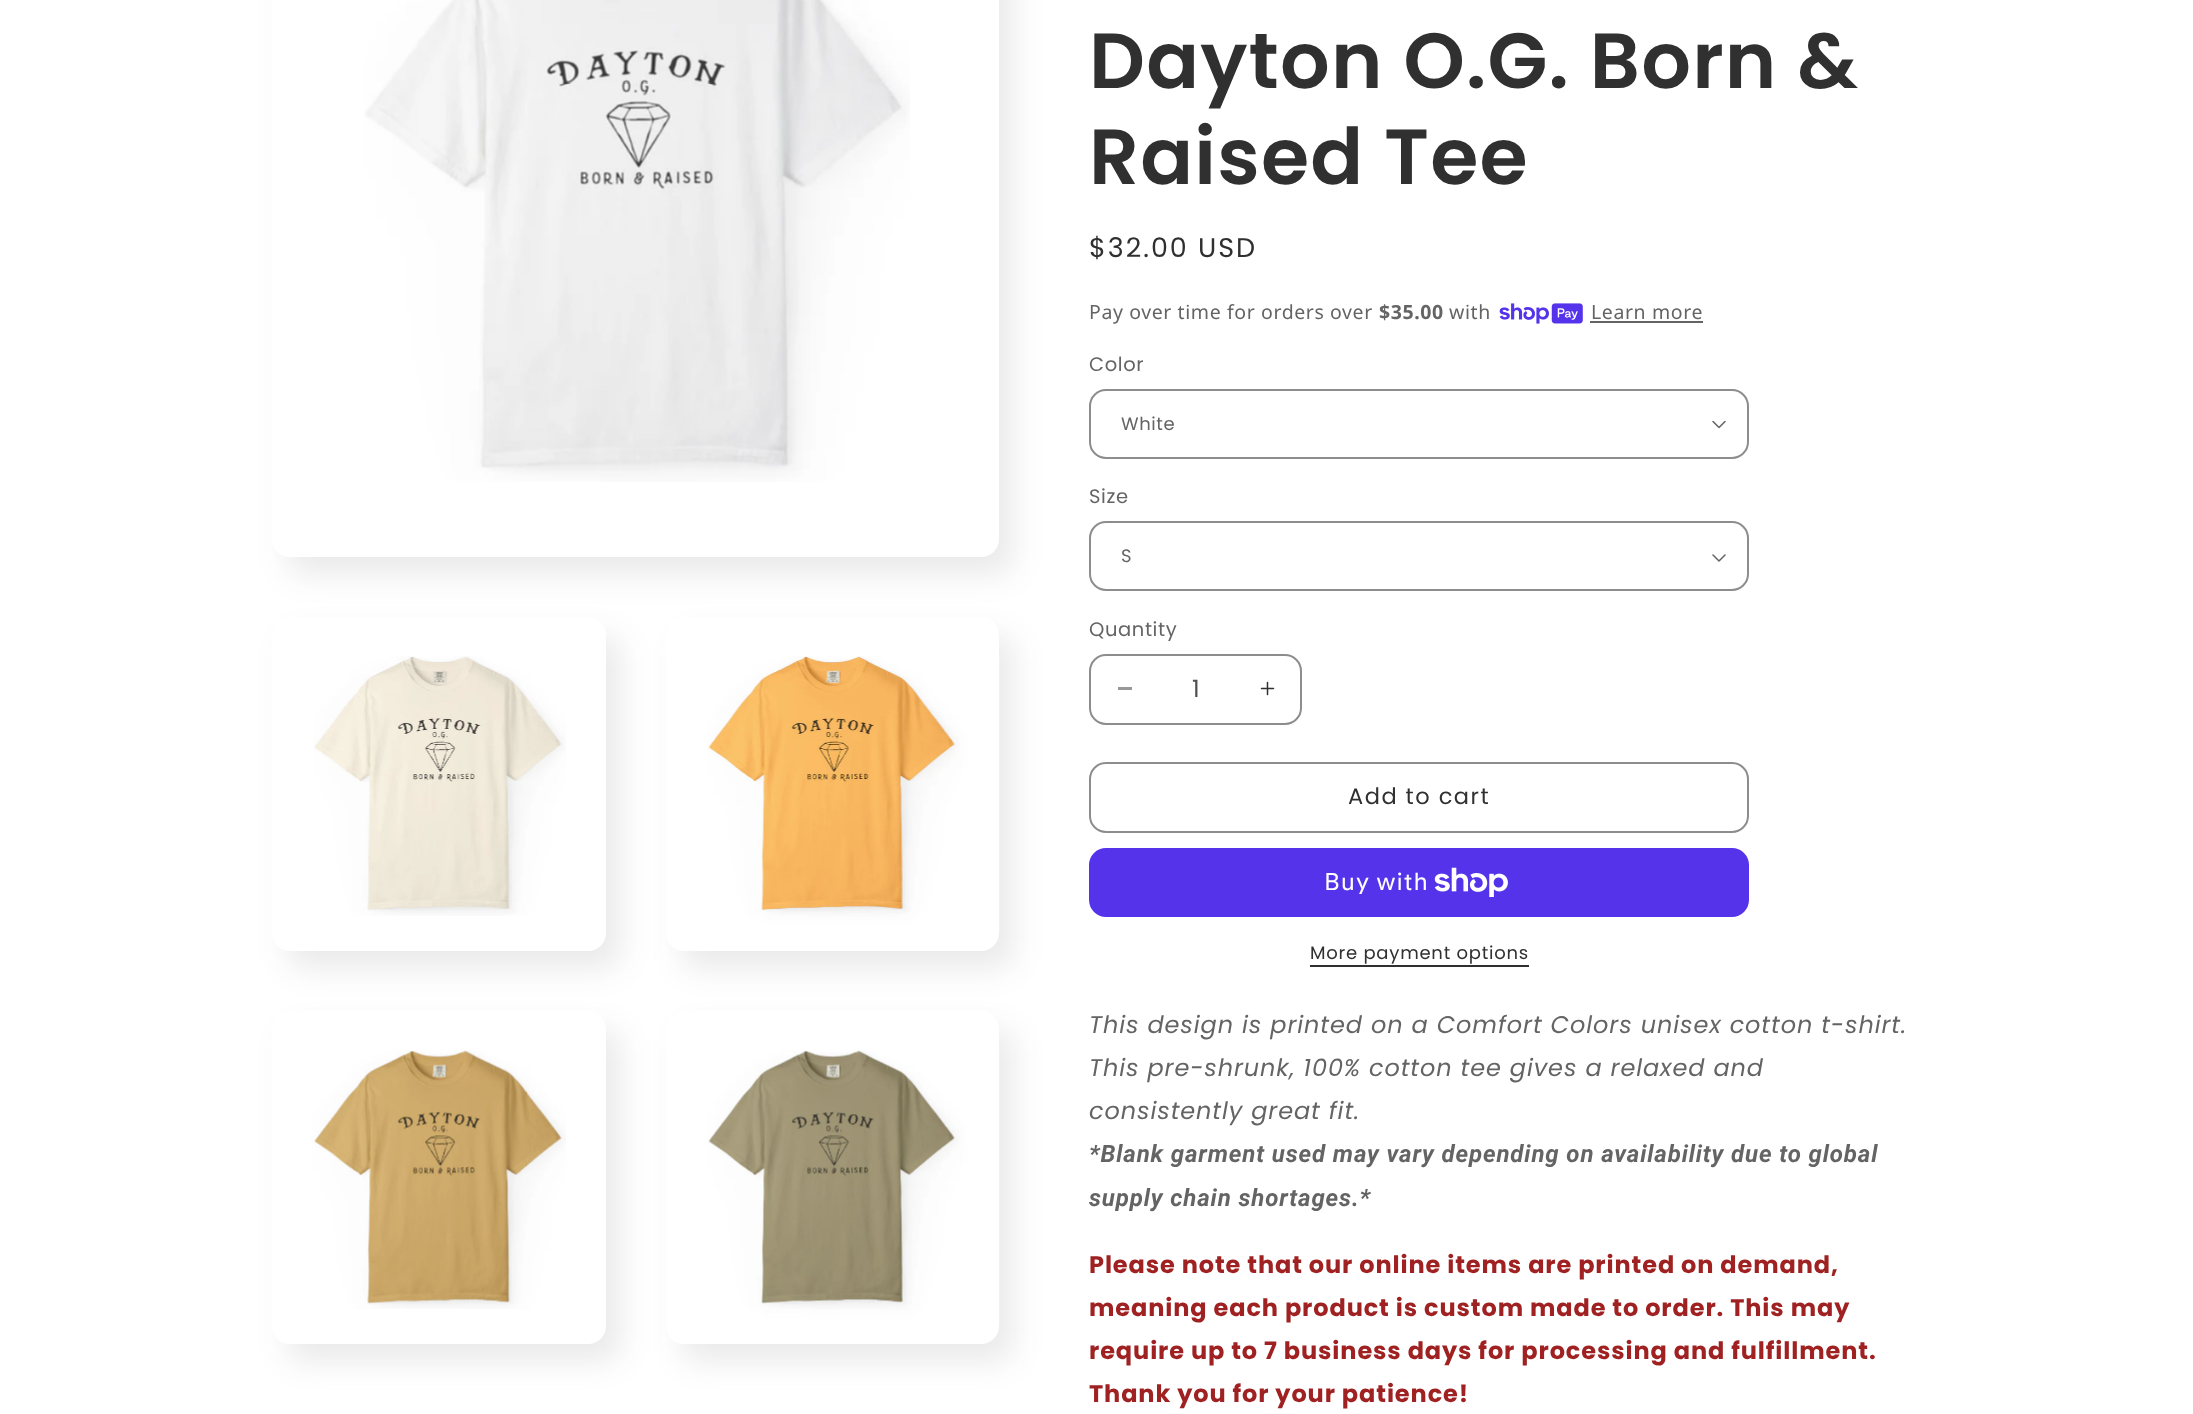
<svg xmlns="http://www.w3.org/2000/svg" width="2193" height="1414">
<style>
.a{font:600 78px Poppins;letter-spacing:1.2px;fill:#303030}
.b{font:27px Poppins;letter-spacing:2px;fill:#303030}
.c{font:19.5px Noto Sans;letter-spacing:0.6px;fill:#646464}
.d{font:bold 19.5px Noto Sans;letter-spacing:0.6px;fill:#646464}
.e{font:19.5px Poppins;letter-spacing:0.6px;fill:#646464}
.f{font:18px Poppins;letter-spacing:0.6px;fill:#646464}
.g{font:24px Poppins;fill:#4f4f4f}
.h{font:22.5px Poppins;letter-spacing:1.5px;fill:#303030}
.i{font:24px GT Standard;letter-spacing:0.9px;fill:#fff}
.j{font:18px Poppins;letter-spacing:0.75px;fill:#303030}
.k{font:italic 24px Poppins;letter-spacing:0.9px;fill:#646464}
.l{font:italic bold 24px Roboto;letter-spacing:0.9px;fill:#646464}
.m{font:bold 24px Poppins;letter-spacing:0.9px;fill:#9f2121}
</style>
<rect width="100%" height="100%" fill="#fff"/>
<rect fill="#3030301a" filter="blur(15px)" x="287" y="-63" width="727" height="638" rx="18"/>
<rect fill="#fff" x="272" y="-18" width="727" height="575" rx="18"/>
<image href="1.png" x="364" y="0" width="546" height="482"/>
<rect fill="#3030301a" filter="blur(15px)" x="287" y="635" width="334" height="334" rx="18"/>
<rect fill="#fff" x="272" y="617" width="334" height="334" rx="18"/>
<image href="2.png" x="314" y="656" width="252" height="260"/>
<rect fill="#3030301a" filter="blur(15px)" x="681" y="635" width="333" height="334" rx="18"/>
<rect fill="#fff" x="666" y="617" width="333" height="334" rx="18"/>
<image href="3.png" x="707" y="656" width="293" height="277"/>
<rect fill="#3030301a" filter="blur(15px)" x="287" y="1029" width="334" height="333" rx="18"/>
<rect fill="#fff" x="272" y="1011" width="334" height="333" rx="18"/>
<image href="4.png" x="311" y="1050" width="255" height="259"/>
<rect fill="#3030301a" filter="blur(15px)" x="681" y="1029" width="333" height="333" rx="18"/>
<rect fill="#fff" x="666" y="1011" width="333" height="333" rx="18"/>
<image href="5.png" x="707" y="1050" width="293" height="276"/>
<image href="6.png" x="1499" y="303" width="84" height="21"/>
<path fill="#646464" d="M1590 321h113v2H1590z"/>
<image href="7.png" x="1712" y="420" width="14" height="9"/>
<rect fill="none" stroke="#8d8d8d" stroke-width="2" x="1090" y="390" width="658" height="68" rx="16"/>
<image href="8.png" x="1712" y="554" width="14" height="8"/>
<rect fill="none" stroke="#8d8d8d" stroke-width="2" x="1090" y="522" width="658" height="68" rx="16"/>
<path fill="#989898" d="M1118 687h14v3H1118z"/>
<image href="9.png" x="1260" y="681" width="15" height="15"/>
<rect fill="none" stroke="#8d8d8d" stroke-width="2" x="1090" y="655" width="211" height="69" rx="16"/>
<rect fill="none" stroke="#8d8d8d" stroke-width="2" x="1090" y="763" width="658" height="69" rx="16"/>
<rect fill="#5433eb" x="1089" y="848" width="660" height="69" rx="17"/>
<image href="10.png" x="1434" y="867" width="74" height="30"/>
<path fill="#303030" d="M1310 965h219v2H1310z"/>
<text class="a" x="1089" y="88">Dayton O.G. Born &amp;</text>
<text class="a" x="1089" y="184">Raised Tee</text>
<text class="b" x="1089" y="257">$32.00 USD</text>
<text class="c" x="1089" y="319">Pay over time for orders over</text>
<text class="d" x="1379" y="319">$35.00</text>
<text class="c" x="1449" y="319">with</text>
<text class="c" x="1591" y="319">Learn more</text>
<text class="e" x="1089" y="371">Color</text>
<text class="f" x="1121" y="430">White</text>
<text class="e" x="1089" y="503">Size</text>
<text class="f" x="1121" y="562">S</text>
<text class="e" x="1089" y="636">Quantity</text>
<text class="g" x="1192" y="697">1</text>
<text class="h" x="1348" y="804">Add to cart</text>
<text class="i" x="1324" y="890">Buy with</text>
<text class="j" x="1310" y="959">More payment options</text>
<text class="k" x="1089" y="1033">This design is printed on a Comfort Colors unisex cotton t-shirt.</text>
<text class="k" x="1089" y="1076">This pre-shrunk, 100% cotton tee gives a relaxed and</text>
<text class="k" x="1089" y="1119">consistently great fit.</text>
<text class="l" x="1089" y="1162">*Blank garment used may vary depending on availability due to global</text>
<text class="l" x="1089" y="1206">supply chain shortages.*</text>
<text class="m" x="1089" y="1273">Please note that our online items are printed on demand,</text>
<text class="m" x="1089" y="1316">meaning each product is custom made to order. This may</text>
<text class="m" x="1089" y="1359">require up to 7 business days for processing and fulfillment.</text>
<text class="m" x="1089" y="1402">Thank you for your patience!</text>
</svg>
